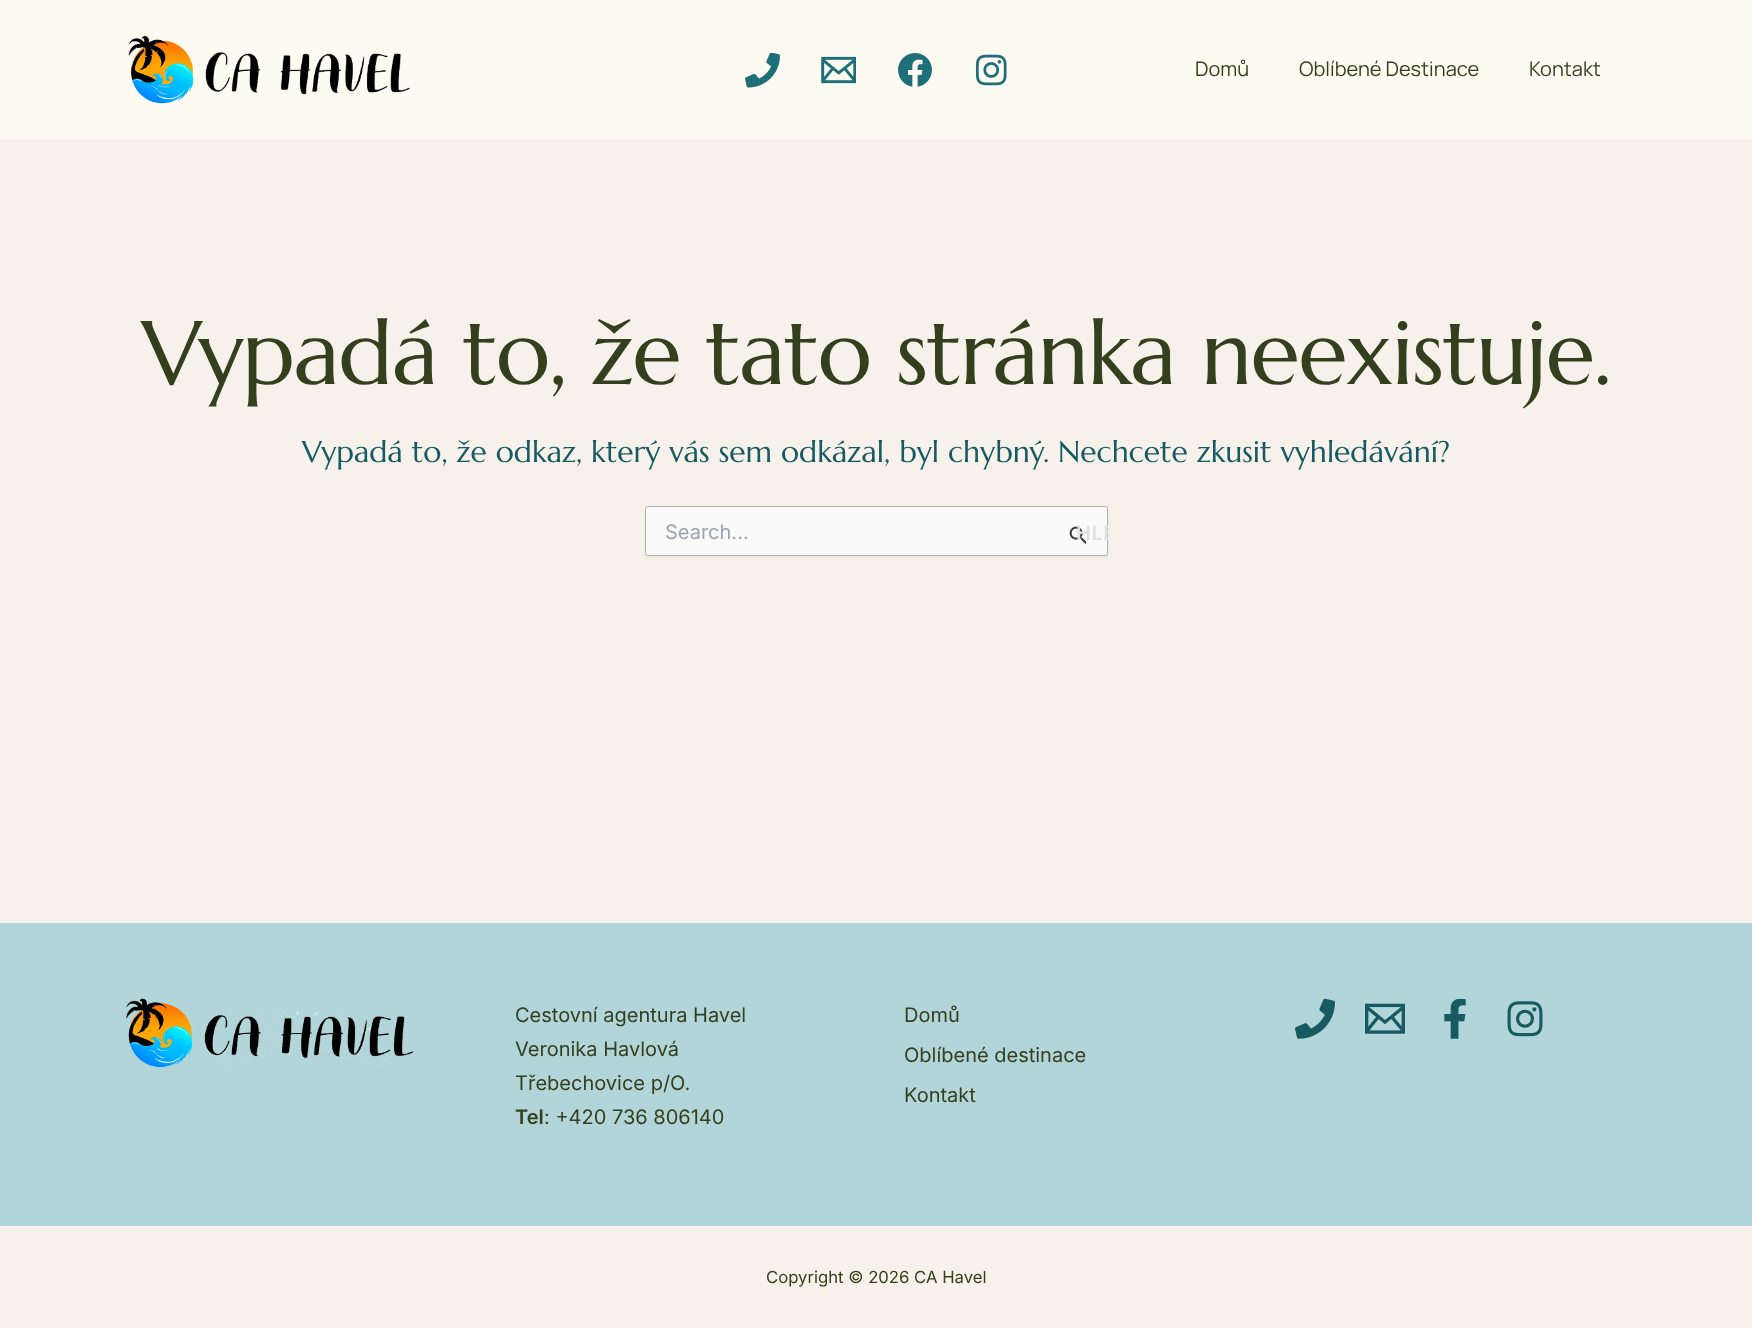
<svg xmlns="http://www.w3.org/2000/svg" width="1752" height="1328">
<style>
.a{font:200 20px Manrope;fill:#343f1e}
.b{font:90px Marcellus;letter-spacing:-1.25px;fill:#343f1e}
.c{font:30px Marcellus;fill:#175a61}
.d{font:20px Inter;fill:#9ca3af}
.e{font:600 20px Inter;letter-spacing:0.5px;fill:#e1e1e1}
.f{font:20px Inter;fill:#343f1e}
.g{font:600 20px Inter;fill:#343f1e}
.h{font:16.7px Inter;fill:#343f1e}
</style>
<defs>
<clipPath id="clip1"><rect x="1051" y="506" width="57" height="53" rx="2.5"/></clipPath>
</defs>
<rect width="100%" height="100%" fill="#f6f1ea"/>
<path fill="#fdfaf1" d="M0 0h1752v139H0z"/>
<image href="1.png" x="128" y="35" width="282" height="69"/>
<image href="2.png" x="745" y="53" width="35" height="35"/>
<image href="3.png" x="821" y="56" width="35" height="28"/>
<image href="4.png" x="898" y="53" width="34" height="34"/>
<image href="5.png" x="975" y="54" width="32" height="32"/>
<rect fill="#0000000d" filter="blur(1px)" x="645" y="508" width="463" height="50" rx="2.5"/>
<rect fill="#fafafa" stroke="#b3b2b2" x="645.5" y="506.5" width="462" height="49" rx="2"/>
<image href="6.png" x="1069" y="526" width="17" height="18"/>
<path fill="#b2d5d9" d="M0 923h1752v303H0z"/>
<image href="7.png" x="126" y="997" width="288" height="71"/>
<image href="8.png" x="1295" y="999" width="40" height="40"/>
<image href="9.png" x="1365" y="1003" width="40" height="31"/>
<image href="10.png" x="1444" y="999" width="22" height="40"/>
<image href="11.png" x="1507" y="1001" width="36" height="36"/>
<text class="a" x="1195" y="76">Domů</text>
<text class="a" x="1299" y="76">Oblíbené Destinace</text>
<text class="a" x="1529" y="76">Kontakt</text>
<text class="b" x="142" y="384">Vypadá to, že tato stránka neexistuje.</text>
<text class="c" x="302" y="462">Vypadá to, že odkaz, který vás sem odkázal, byl chybný. Nechcete zkusit vyhledávání?</text>
<text class="d" x="665" y="539">Search...</text>
<g clip-path="url(#clip1)">
<text class="e" x="1076" y="540">HLE</text>
</g>
<text class="f" x="515" y="1022">Cestovní agentura Havel</text>
<text class="f" x="515" y="1056">Veronika Havlová</text>
<text class="f" x="515" y="1090">Třebechovice p/O.</text>
<text class="g" x="515" y="1124">Tel</text>
<text class="f" x="544" y="1124">: +420 736 806140</text>
<text class="f" x="904" y="1022">Domů</text>
<text class="f" x="904" y="1062">Oblíbené destinace</text>
<text class="f" x="904" y="1102">Kontakt</text>
<text class="h" x="766" y="1283">Copyright © 2026 CA Havel</text>
</svg>
